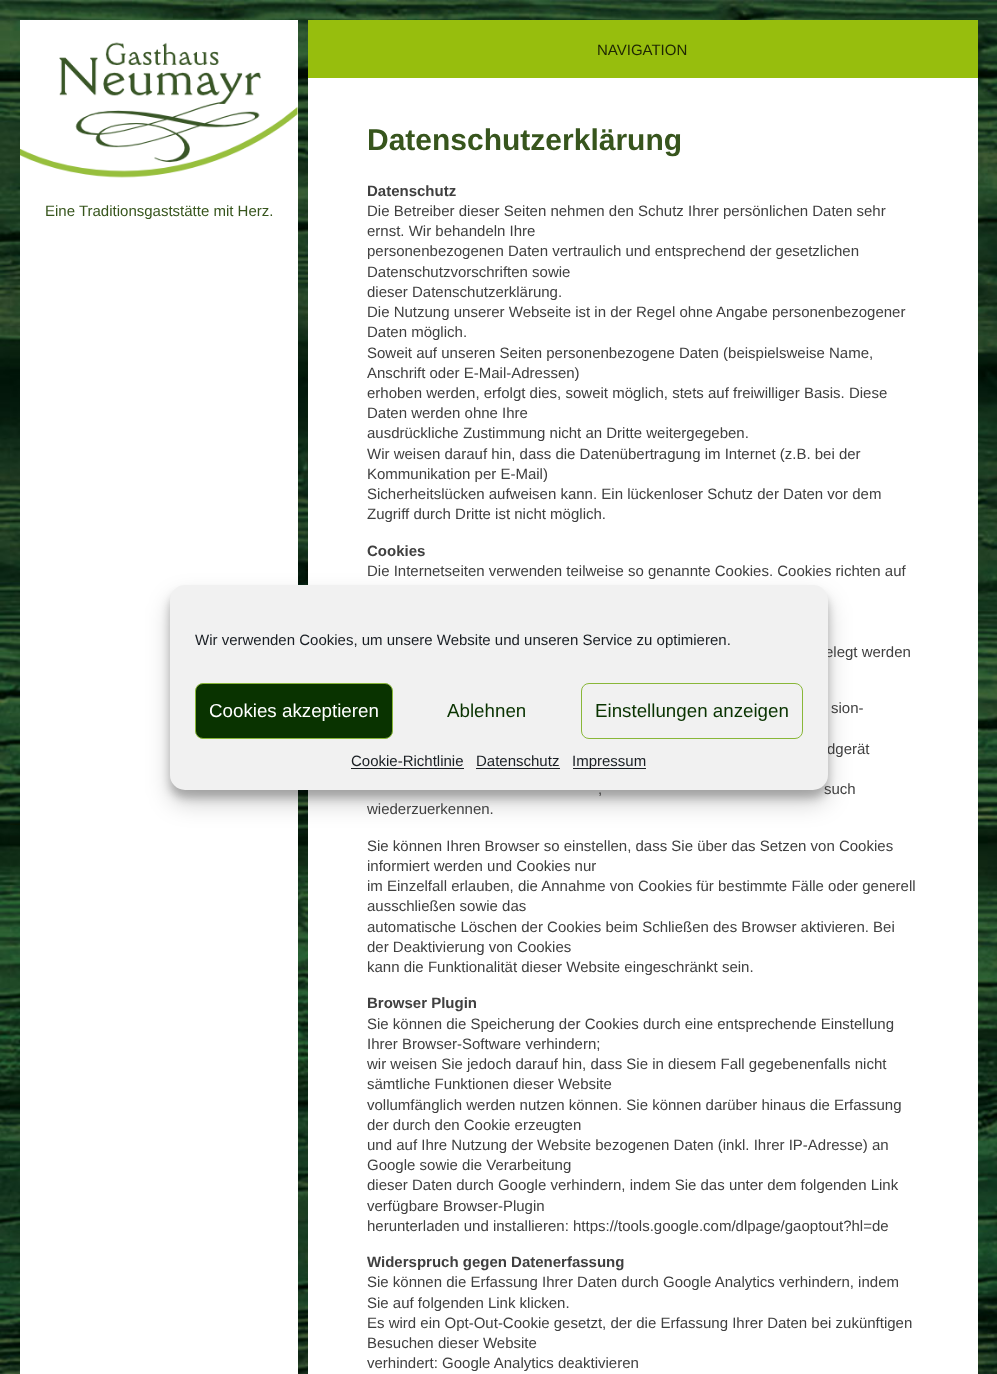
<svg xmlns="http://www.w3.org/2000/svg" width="997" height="1374">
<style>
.a{font:15px Liberation Sans;fill:#37551d}
.b{font:15px Liberation Sans;fill:#1e2603}
.c{font:bold 30px Liberation Sans;fill:#37551d}
.d{font:bold 15px Liberation Sans;fill:#404040}
.e{font:15px Liberation Sans;fill:#404040}
.f{font:15px Liberation Sans;fill:#191e23}
.g{font:18.75px Liberation Sans;fill:#fff}
.h{font:18.75px Liberation Sans;fill:#093300}
</style>
<rect width="100%" height="100%" fill="#fff"/>
<image href="1.png" x="0" y="0" width="997" height="1374"/>
<path fill="#fff" d="M20 20h278v1354H20z"/>
<image href="2.png" x="20" y="42" width="278" height="136"/>
<path fill="#97be0d" d="M308 20h670v58H308z"/>
<path fill="#fff" d="M308 78h670v1296H308z"/>
<rect fill="#0000003b" filter="blur(4px)" x="170" y="593" width="658" height="205" rx="15"/>
<rect fill="#00000030" filter="blur(12.5px)" x="170" y="598" width="658" height="205" rx="15"/>
<text class="a" x="45" y="216">Eine Traditionsgaststätte mit Herz.</text>
<text class="b" x="597" y="55">NAVIGATION</text>
<text class="c" x="367" y="150">Datenschutzerklärung</text>
<text class="d" x="367" y="196">Datenschutz</text>
<text class="e" x="367" y="216">Die Betreiber dieser Seiten nehmen den Schutz Ihrer persönlichen Daten sehr</text>
<text class="e" x="367" y="236">ernst. Wir behandeln Ihre</text>
<text class="e" x="367" y="256">personenbezogenen Daten vertraulich und entsprechend der gesetzlichen</text>
<text class="e" x="367" y="277">Datenschutzvorschriften sowie</text>
<text class="e" x="367" y="297">dieser Datenschutzerklärung.</text>
<text class="e" x="367" y="317">Die Nutzung unserer Webseite ist in der Regel ohne Angabe personenbezogener</text>
<text class="e" x="367" y="337">Daten möglich.</text>
<text class="e" x="367" y="358">Soweit auf unseren Seiten personenbezogene Daten (beispielsweise Name,</text>
<text class="e" x="367" y="378">Anschrift oder E-Mail-Adressen)</text>
<text class="e" x="367" y="398">erhoben werden, erfolgt dies, soweit möglich, stets auf freiwilliger Basis. Diese</text>
<text class="e" x="367" y="418">Daten werden ohne Ihre</text>
<text class="e" x="367" y="438">ausdrückliche Zustimmung nicht an Dritte weitergegeben.</text>
<text class="e" x="367" y="459">Wir weisen darauf hin, dass die Datenübertragung im Internet (z.B. bei der</text>
<text class="e" x="367" y="479">Kommunikation per E-Mail)</text>
<text class="e" x="367" y="499">Sicherheitslücken aufweisen kann. Ein lückenloser Schutz der Daten vor dem</text>
<text class="e" x="367" y="519">Zugriff durch Dritte ist nicht möglich.</text>
<text class="d" x="367" y="556">Cookies</text>
<text class="e" x="367" y="576">Die Internetseiten verwenden teilweise so genannte Cookies. Cookies richten auf</text>
<text class="e" x="825" y="657">elegt werden</text>
<text class="e" x="831" y="713">sion-</text>
<text class="e" x="827" y="754">dgerät</text>
<text class="e" x="598" y="794">,</text>
<text class="e" x="824" y="794">such</text>
<text class="e" x="367" y="814">wiederzuerkennen.</text>
<text class="e" x="367" y="851">Sie können Ihren Browser so einstellen, dass Sie über das Setzen von Cookies</text>
<text class="e" x="367" y="871">informiert werden und Cookies nur</text>
<text class="e" x="367" y="891">im Einzelfall erlauben, die Annahme von Cookies für bestimmte Fälle oder generell</text>
<text class="e" x="367" y="911">ausschließen sowie das</text>
<text class="e" x="367" y="932">automatische Löschen der Cookies beim Schließen des Browser aktivieren. Bei</text>
<text class="e" x="367" y="952">der Deaktivierung von Cookies</text>
<text class="e" x="367" y="972">kann die Funktionalität dieser Website eingeschränkt sein.</text>
<text class="d" x="367" y="1008">Browser Plugin</text>
<text class="e" x="367" y="1029">Sie können die Speicherung der Cookies durch eine entsprechende Einstellung</text>
<text class="e" x="367" y="1049">Ihrer Browser-Software verhindern;</text>
<text class="e" x="367" y="1069">wir weisen Sie jedoch darauf hin, dass Sie in diesem Fall gegebenenfalls nicht</text>
<text class="e" x="367" y="1089">sämtliche Funktionen dieser Website</text>
<text class="e" x="367" y="1110">vollumfänglich werden nutzen können. Sie können darüber hinaus die Erfassung</text>
<text class="e" x="367" y="1130">der durch den Cookie erzeugten</text>
<text class="e" x="367" y="1150">und auf Ihre Nutzung der Website bezogenen Daten (inkl. Ihrer IP-Adresse) an</text>
<text class="e" x="367" y="1170">Google sowie die Verarbeitung</text>
<text class="e" x="367" y="1190">dieser Daten durch Google verhindern, indem Sie das unter dem folgenden Link</text>
<text class="e" x="367" y="1211">verfügbare Browser-Plugin</text>
<text class="e" x="367" y="1231">herunterladen und installieren: https://tools.google.com/dlpage/gaoptout?hl=de</text>
<text class="d" x="367" y="1267">Widerspruch gegen Datenerfassung</text>
<text class="e" x="367" y="1287">Sie können die Erfassung Ihrer Daten durch Google Analytics verhindern, indem</text>
<text class="e" x="367" y="1308">Sie auf folgenden Link klicken.</text>
<text class="e" x="367" y="1328">Es wird ein Opt-Out-Cookie gesetzt, der die Erfassung Ihrer Daten bei zukünftigen</text>
<text class="e" x="367" y="1348">Besuchen dieser Website</text>
<text class="e" x="367" y="1368">verhindert: Google Analytics deaktivieren</text>
<rect fill="#f1f1f1" x="170" y="585" width="658" height="205" rx="15"/>
<text class="f" x="195" y="645">Wir verwenden Cookies, um unsere Website und unseren Service zu optimieren.</text>
<rect fill="#093300" stroke="#89b738" x="195.5" y="683.5" width="197" height="55" rx="7.5"/>
<text class="g" x="209" y="717">Cookies akzeptieren</text>
<text class="h" x="447" y="717">Ablehnen</text>
<rect fill="none" stroke="#89b738" x="581.5" y="683.5" width="221" height="55" rx="7.5"/>
<text class="h" x="595" y="717">Einstellungen anzeigen</text>
<text class="f" x="351" y="766">Cookie-Richtlinie</text>
<path fill="#191e23" d="M351 768h113v1H351z"/>
<text class="f" x="476" y="766">Datenschutz</text>
<path fill="#191e23" d="M476 768h84v1H476z"/>
<path fill="#191e23" d="M573 768h73v1H573z"/>
<text class="f" x="572" y="766">Impressum</text>
</svg>
